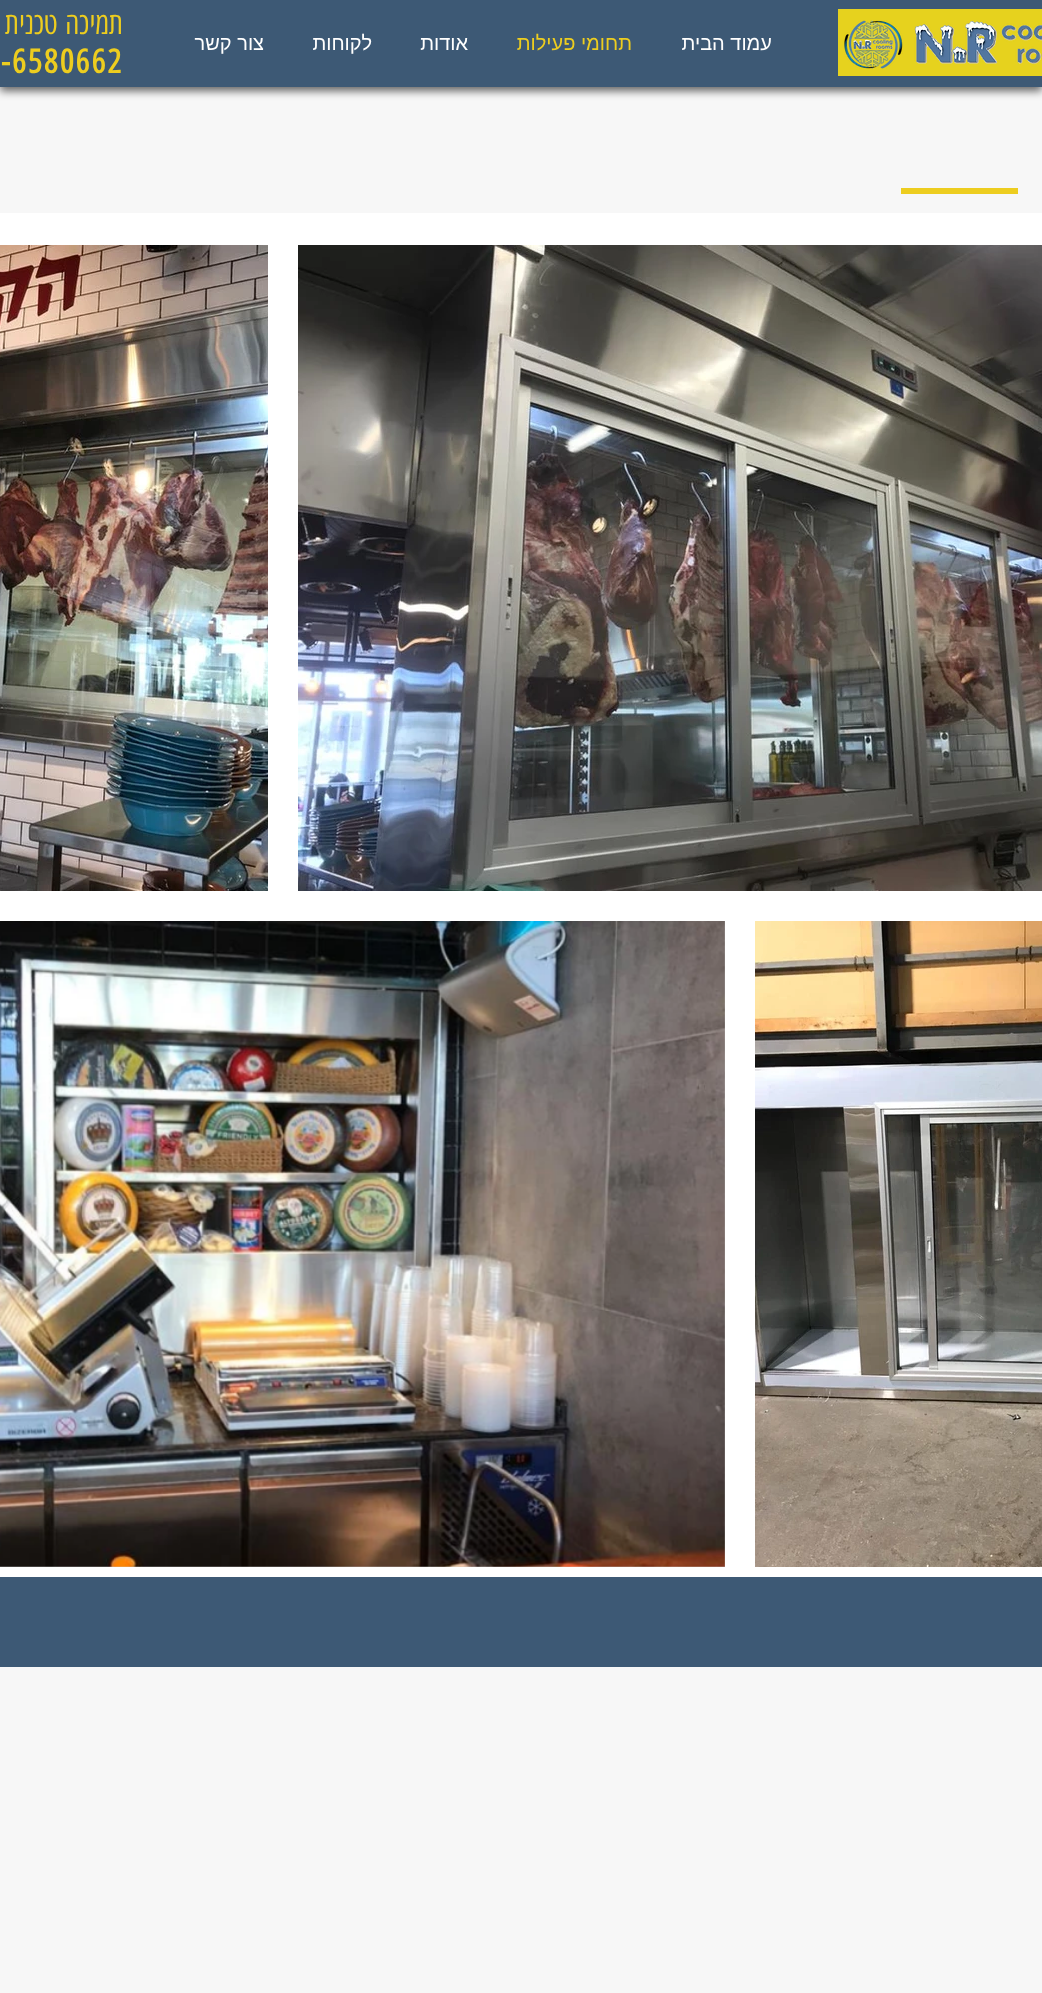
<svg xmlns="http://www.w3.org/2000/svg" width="1042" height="1993">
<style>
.a{font:30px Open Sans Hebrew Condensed;direction:rtl;fill:#edcd1f}
.b{font:bold 33px Open Sans Hebrew Condensed;letter-spacing:2px;fill:#edcd1f}
.c{font:20px Liberation Sans;direction:rtl;fill:#fff}
.d{font:20px Liberation Sans;direction:rtl;fill:#edcd1f}
</style>
<rect width="100%" height="100%" fill="#f7f7f7"/>
<path fill="#00000099" filter="blur(4px)" d="M0 4h1042v87H0z"/>
<path fill="#3d5975" d="M0 0h1042v87H0z"/>
<path fill="#e6d21e" d="M838 9h204v67H838z"/>
<image href="1.png" x="914" y="21" width="128" height="43"/>
<image href="2.png" x="844" y="20" width="59" height="49"/>
<path fill="#edcd1f" d="M901 188h117v6H901z"/>
<path fill="#fff" d="M0 213h1042v1364H0z"/>
<image href="3.png" x="298" y="245" width="744" height="646"/>
<image href="4.png" x="0" y="245" width="268" height="646"/>
<image href="5.png" x="755" y="921" width="287" height="646"/>
<path fill="#c6c6c6" d="M0 921h725v646H0z"/>
<image href="6.png" x="0" y="921" width="725" height="646"/>
<path fill="#3d5975" d="M0 1577h1042v90H0z"/>
<text class="a" x="123" y="34">תמיכה טכנית</text>
<text class="b" x="1" y="73">-6580662</text>
<text class="c" x="772" y="50">עמוד הבית</text>
<text class="d" x="632" y="50">תחומי פעילות</text>
<text class="c" x="468" y="50">אודות</text>
<text class="c" x="372" y="50">לקוחות</text>
<text class="c" x="264" y="50">צור קשר</text>
</svg>
